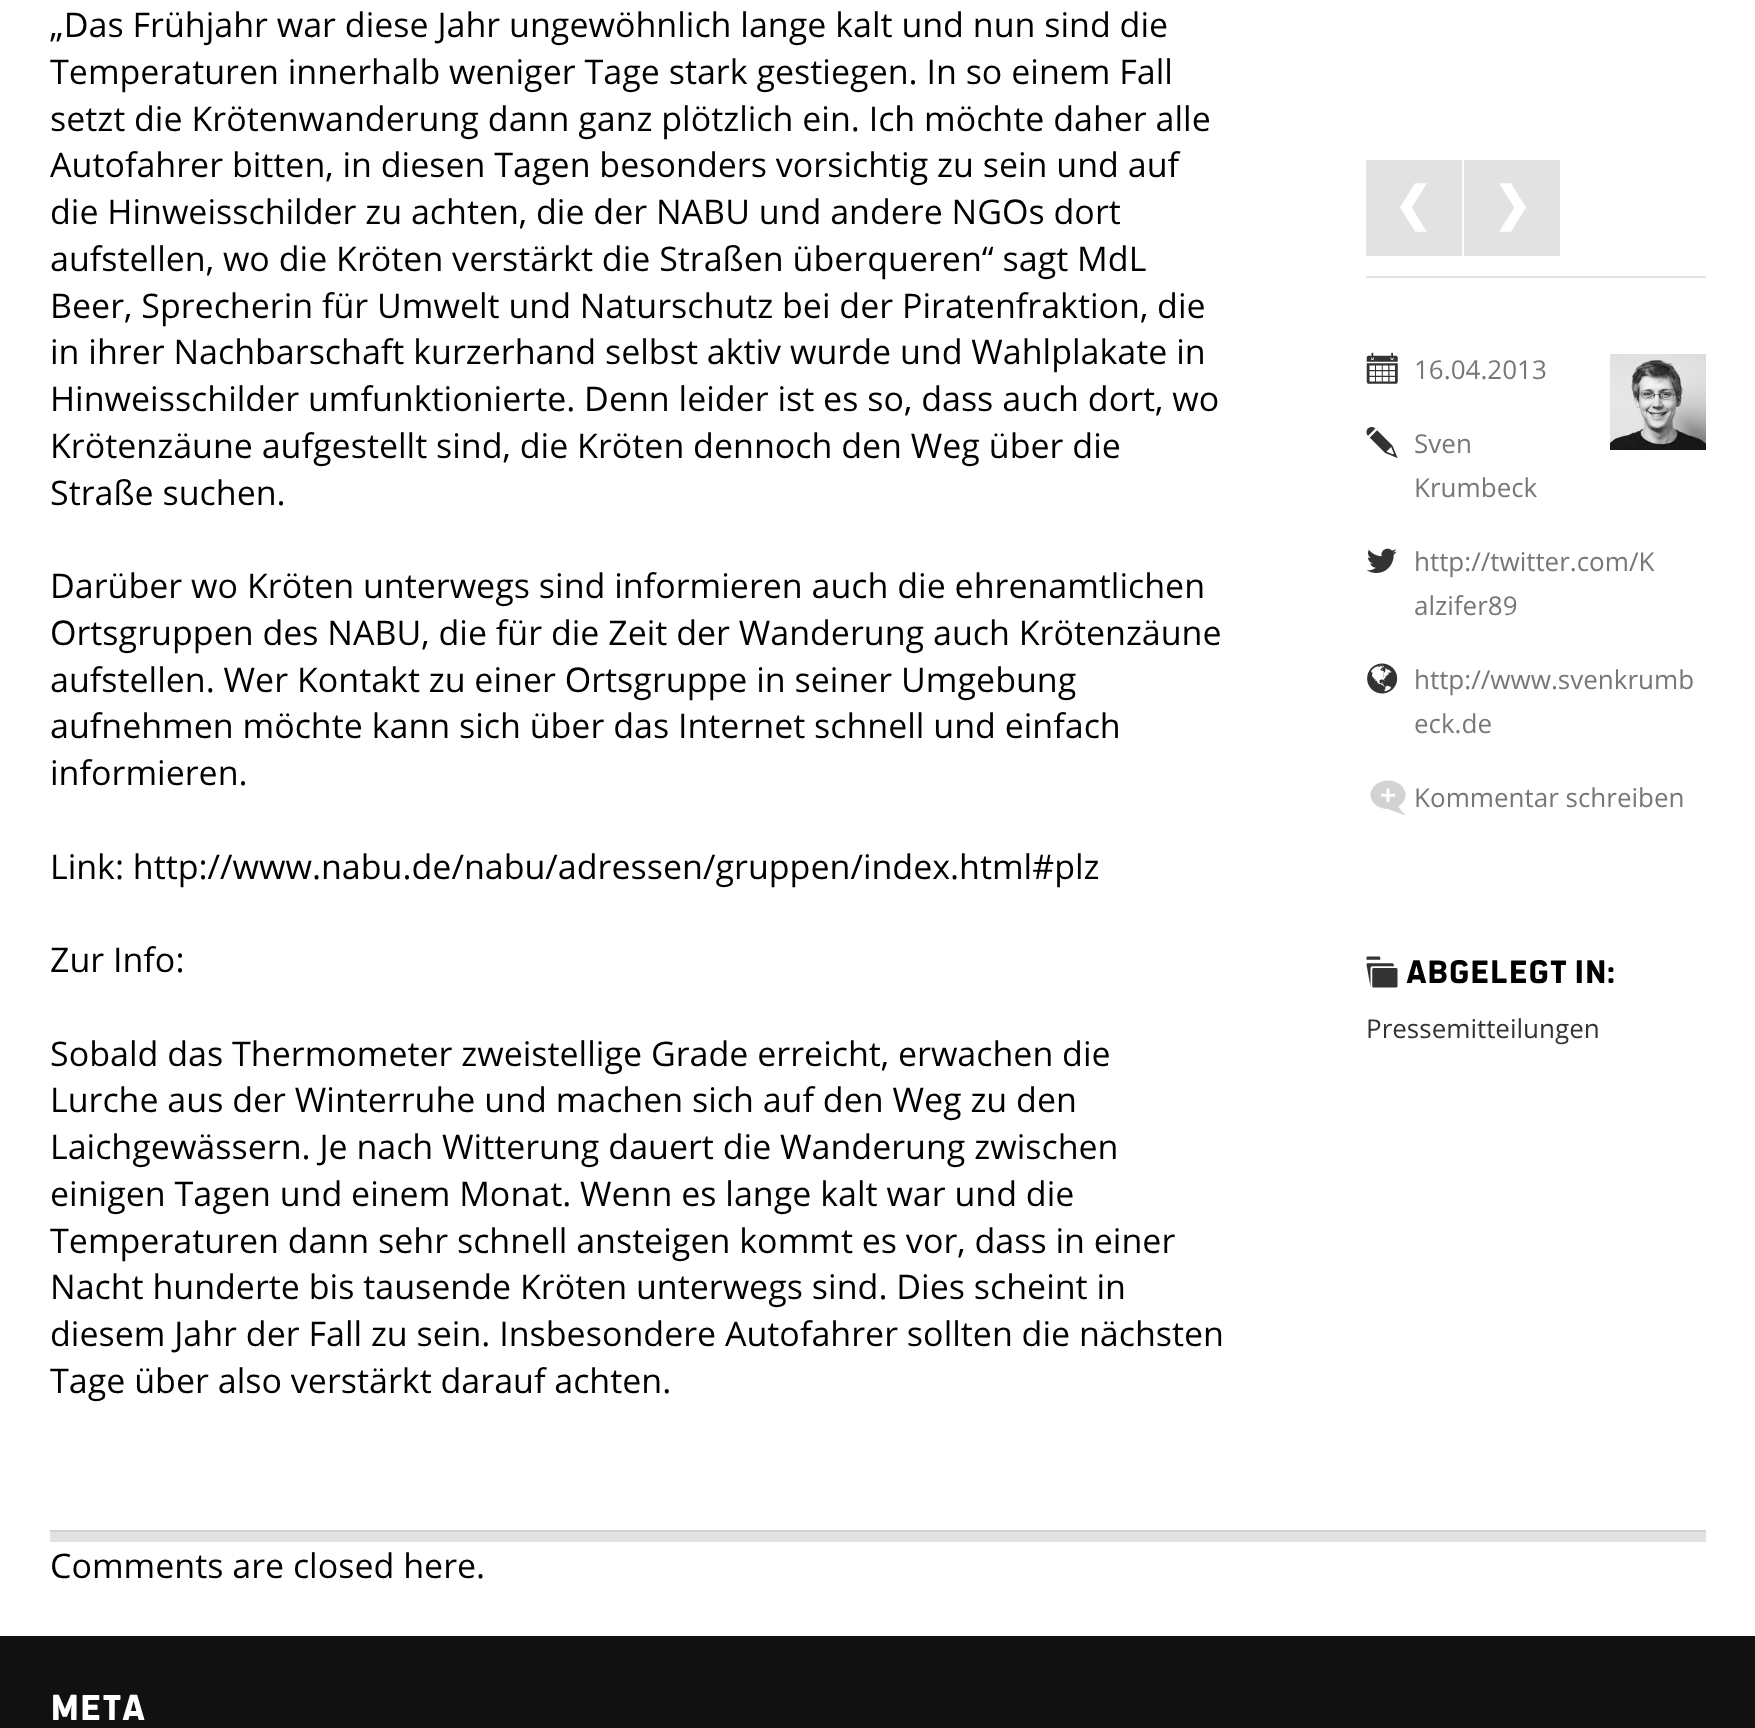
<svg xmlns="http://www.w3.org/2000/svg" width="1755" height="1728">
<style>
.a{font:34px Open Sans;fill:#000}
.b{font:26px Open Sans;fill:#777}
.c{font:bold 36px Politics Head;fill:#000}
.d{font:26px Open Sans;fill:#333}
.e{font:bold 40px Politics Head;fill:#fff}
</style>
<rect width="100%" height="100%" fill="#fff"/>
<path fill="#e2e2e2" d="M1366 276h340v2H1366z"/>
<path fill="#e2e2e2" d="M1366 160h96v96H1366z"/>
<image href="1.png" x="1400" y="183" width="27" height="49"/>
<path fill="#e2e2e2" d="M1464 160h96v96H1464z"/>
<image href="2.png" x="1499" y="183" width="27" height="49"/>
<image href="3.png" x="1366" y="352" width="32" height="32"/>
<image href="4.png" x="1610" y="354" width="96" height="96"/>
<image href="5.png" x="1366" y="427" width="32" height="31"/>
<image href="6.png" x="1366" y="548" width="31" height="25"/>
<image href="7.png" x="1367" y="663" width="31" height="31"/>
<image href="8.png" x="1370" y="780" width="36" height="36"/>
<image href="9.png" x="1366" y="956" width="32" height="32"/>
<path fill="#e2e2e2" d="M50 1532h1656v10H50z"/>
<path fill="#d2d2d2" d="M50 1530h1656v2H50z"/>
<path fill="#111" d="M0 1636h1755v92H0z"/>
<text class="a" x="50" y="37">„Das Frühjahr war diese Jahr ungewöhnlich lange kalt und nun sind die</text>
<text class="a" x="50" y="84">Temperaturen innerhalb weniger Tage stark gestiegen. In so einem Fall</text>
<text class="a" x="50" y="131">setzt die Krötenwanderung dann ganz plötzlich ein. Ich möchte daher alle</text>
<text class="a" x="50" y="177">Autofahrer bitten, in diesen Tagen besonders vorsichtig zu sein und auf</text>
<text class="a" x="50" y="224">die Hinweisschilder zu achten, die der NABU und andere NGOs dort</text>
<text class="a" x="50" y="271">aufstellen, wo die Kröten verstärkt die Straßen überqueren“ sagt MdL</text>
<text class="a" x="50" y="318">Beer, Sprecherin für Umwelt und Naturschutz bei der Piratenfraktion, die</text>
<text class="a" x="50" y="364">in ihrer Nachbarschaft kurzerhand selbst aktiv wurde und Wahlplakate in</text>
<text class="a" x="50" y="411">Hinweisschilder umfunktionierte. Denn leider ist es so, dass auch dort, wo</text>
<text class="a" x="50" y="458">Krötenzäune aufgestellt sind, die Kröten dennoch den Weg über die</text>
<text class="a" x="50" y="505">Straße suchen.</text>
<text class="a" x="50" y="598">Darüber wo Kröten unterwegs sind informieren auch die ehrenamtlichen</text>
<text class="a" x="50" y="645">Ortsgruppen des NABU, die für die Zeit der Wanderung auch Krötenzäune</text>
<text class="a" x="50" y="692">aufstellen. Wer Kontakt zu einer Ortsgruppe in seiner Umgebung</text>
<text class="a" x="50" y="738">aufnehmen möchte kann sich über das Internet schnell und einfach</text>
<text class="a" x="50" y="785">informieren.</text>
<text class="a" x="50" y="879">Link: http://www.nabu.de/nabu/adressen/gruppen/index.html#plz</text>
<text class="a" x="50" y="972">Zur Info:</text>
<text class="a" x="50" y="1066">Sobald das Thermometer zweistellige Grade erreicht, erwachen die</text>
<text class="a" x="50" y="1112">Lurche aus der Winterruhe und machen sich auf den Weg zu den</text>
<text class="a" x="50" y="1159">Laichgewässern. Je nach Witterung dauert die Wanderung zwischen</text>
<text class="a" x="50" y="1206">einigen Tagen und einem Monat. Wenn es lange kalt war und die</text>
<text class="a" x="50" y="1253">Temperaturen dann sehr schnell ansteigen kommt es vor, dass in einer</text>
<text class="a" x="50" y="1299">Nacht hunderte bis tausende Kröten unterwegs sind. Dies scheint in</text>
<text class="a" x="50" y="1346">diesem Jahr der Fall zu sein. Insbesondere Autofahrer sollten die nächsten</text>
<text class="a" x="50" y="1393">Tage über also verstärkt darauf achten.</text>
<text class="b" x="1414" y="379">16.04.2013</text>
<text class="b" x="1414" y="453">Sven</text>
<text class="b" x="1414" y="497">Krumbeck</text>
<text class="b" x="1414" y="571">http://twitter.com/K</text>
<text class="b" x="1414" y="615">alzifer89</text>
<text class="b" x="1414" y="689">http://www.svenkrumb</text>
<text class="b" x="1414" y="733">eck.de</text>
<text class="b" x="1414" y="807">Kommentar schreiben</text>
<text class="c" x="1406" y="983">abgelegt in:</text>
<text class="d" x="1366" y="1038">Pressemitteilungen</text>
<text class="a" x="50" y="1578">Comments are closed here.</text>
<text class="e" x="50" y="1720">Meta</text>
</svg>
